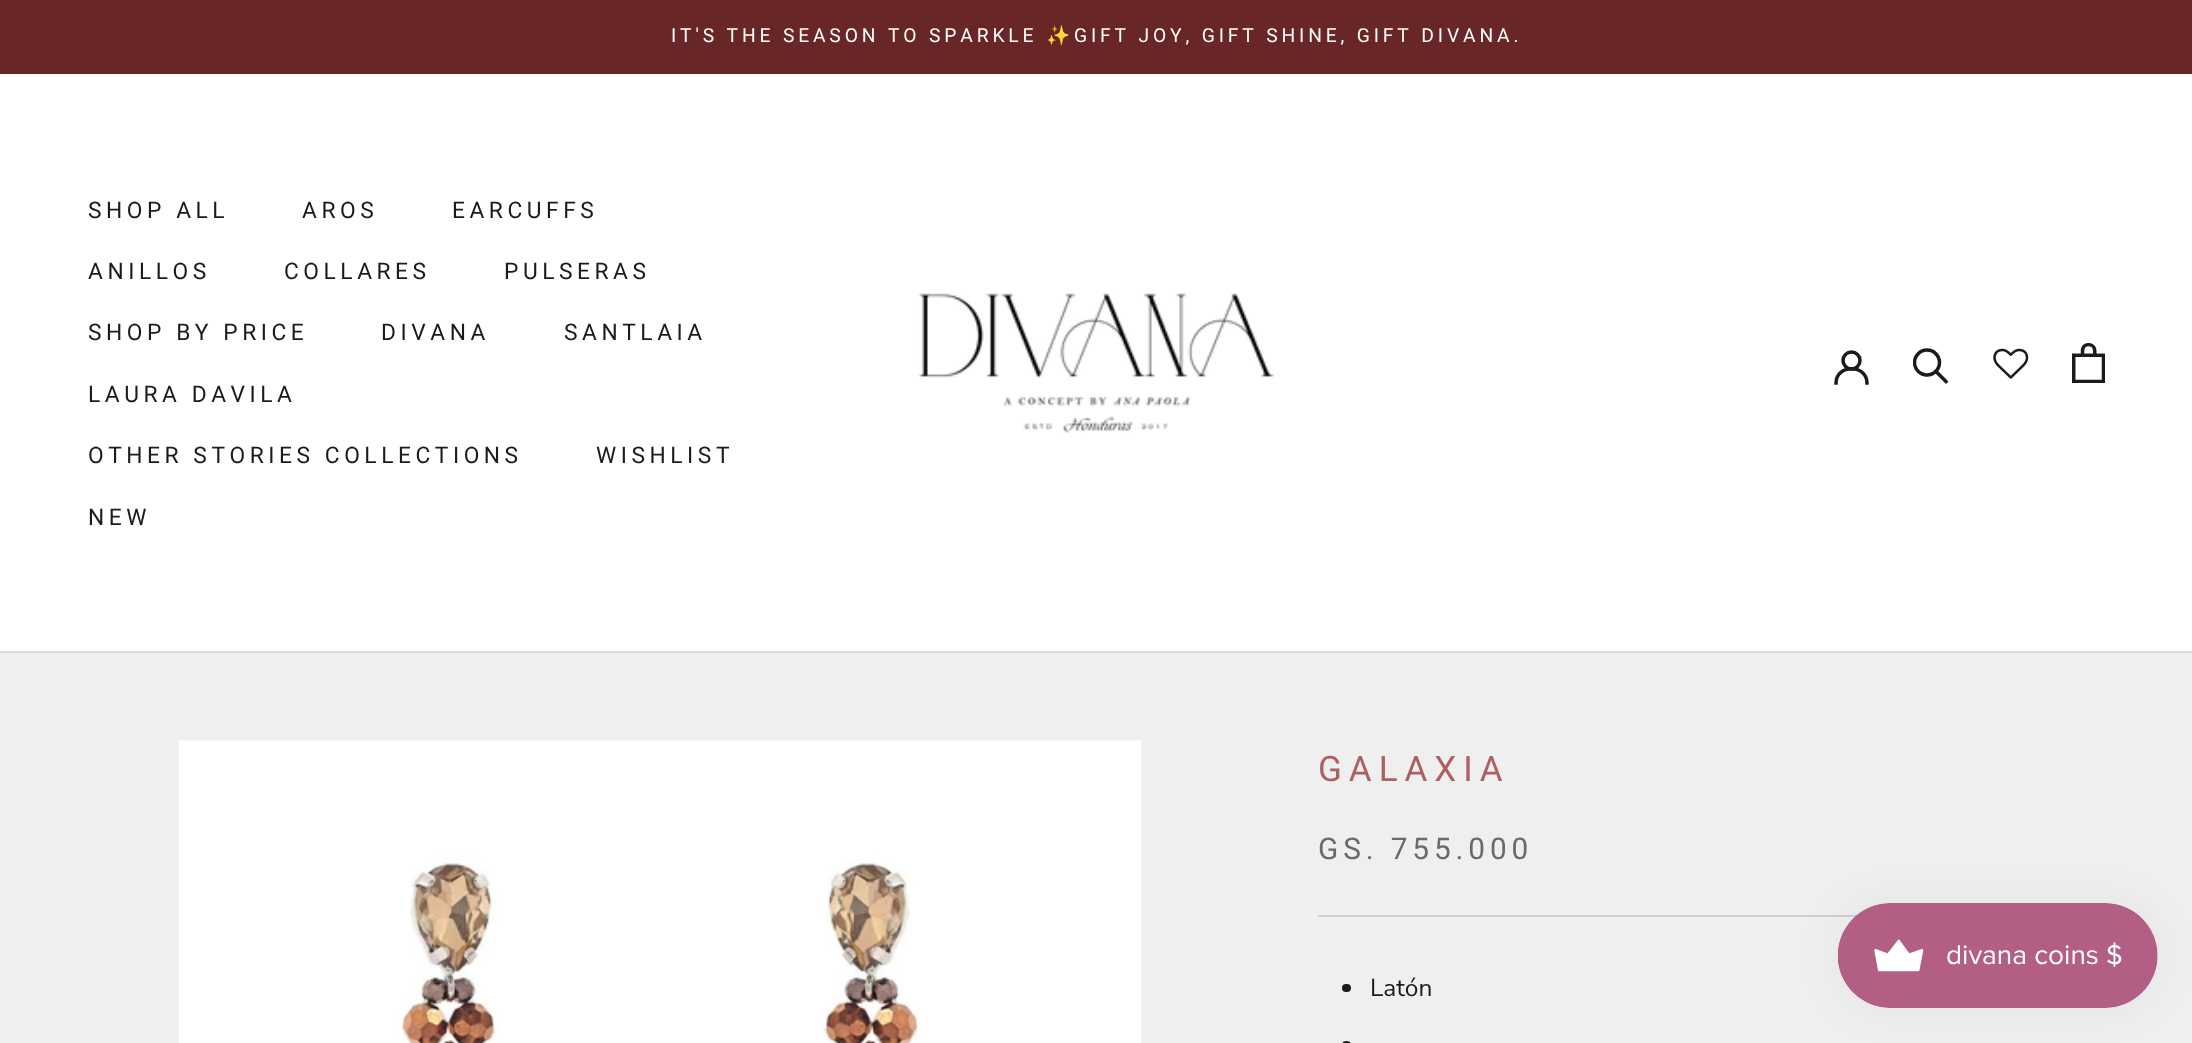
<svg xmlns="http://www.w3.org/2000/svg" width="2192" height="1043">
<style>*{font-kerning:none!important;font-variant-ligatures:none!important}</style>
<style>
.a{font:19.25px Roboto;letter-spacing:3.85px;fill:#fffdfd}
.b{font:19.25px Noto Color Emoji;letter-spacing:3.85px;fill:#fffdfd}
.c{font:22.75px Roboto;letter-spacing:4.55px;fill:#1c1b1b}
.d{font:35px Roboto;letter-spacing:7px;fill:#ae6060}
.e{font:29.75px Roboto;letter-spacing:4.9px;fill:#6a6a6a}
.f{font:24.5px Nunito Sans;fill:#1c1b1b}
</style>
<defs>
<clipPath id="clip1"><path d="M1913 348h37v37H1913z"/></clipPath>
</defs>
<rect width="100%" height="100%" fill="#efefef"/>
<path fill="#682626" d="M0 0h2192v74H0z"/>
<path fill="#fff" d="M0 74h2192v577H0z"/>
<path fill="#ddd" d="M0 651h2192v2H0z"/>
<image href="1.png" x="918" y="293" width="357" height="140"/>
<path fill="none" stroke="#1c1b1b" stroke-width="3.5" stroke-linecap="square" d="M1836 383c0-19 31-19 31 0"/>
<circle fill="none" stroke="#1c1b1b" stroke-width="3.5" cx="1851.5" cy="360.5" r="8.5"/>
<path fill="none" stroke="#1c1b1b" stroke-width="3.5" stroke-linecap="square" d="M1946 381.5l-10-10"/>
<g clip-path="url(#clip1)">
<circle fill="none" stroke="#1c1b1b" stroke-width="3.5" cx="1927" cy="362.5" r="12.5"/>
</g>
<image href="2.png" x="1993" y="348" width="36" height="31"/>
<image href="3.png" x="2072" y="343" width="33" height="40"/>
<image href="4.png" x="178" y="740" width="963" height="303"/>
<path fill="#cfcfcf" d="M1318 915h539v2H1318z"/>
<rect fill="#1c1b1b" x="1342" y="984" width="9" height="8" rx="4"/>
<rect fill="#1c1b1b" x="1342" y="1041" width="9" height="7" rx="4.5"/>
<rect fill="#0000000d" filter="blur(22px)" x="1838" y="903" width="320" height="105" rx="52.5"/>
<image href="5.png" x="1837" y="903" width="321" height="105"/>
<text class="a" x="671" y="42">IT'S THE SEASON TO SPARKLE</text>
<text class="b" x="1046" y="42">✨</text>
<text class="a" x="1074" y="42">GIFT JOY, GIFT SHINE, GIFT DIVANA.</text>
<text class="c" x="88" y="218">SHOP ALL</text>
<text class="c" x="302" y="218">AROS</text>
<text class="c" x="452" y="218">EARCUFFS</text>
<text class="c" x="88" y="279">ANILLOS</text>
<text class="c" x="284" y="279">COLLARES</text>
<text class="c" x="504" y="279">PULSERAS</text>
<text class="c" x="88" y="340">SHOP BY PRICE</text>
<text class="c" x="381" y="340">DIVANA</text>
<text class="c" x="564" y="340">SANTLAIA</text>
<text class="c" x="88" y="402">LAURA DAVILA</text>
<text class="c" x="88" y="463">OTHER STORIES COLLECTIONS</text>
<text class="c" x="596" y="463">WISHLIST</text>
<text class="c" x="88" y="525">NEW</text>
<text class="d" x="1318" y="781">GALAXIA</text>
<text class="e" x="1318" y="859">GS. 755.000</text>
<text class="f" x="1370" y="996">Latón</text>
</svg>
